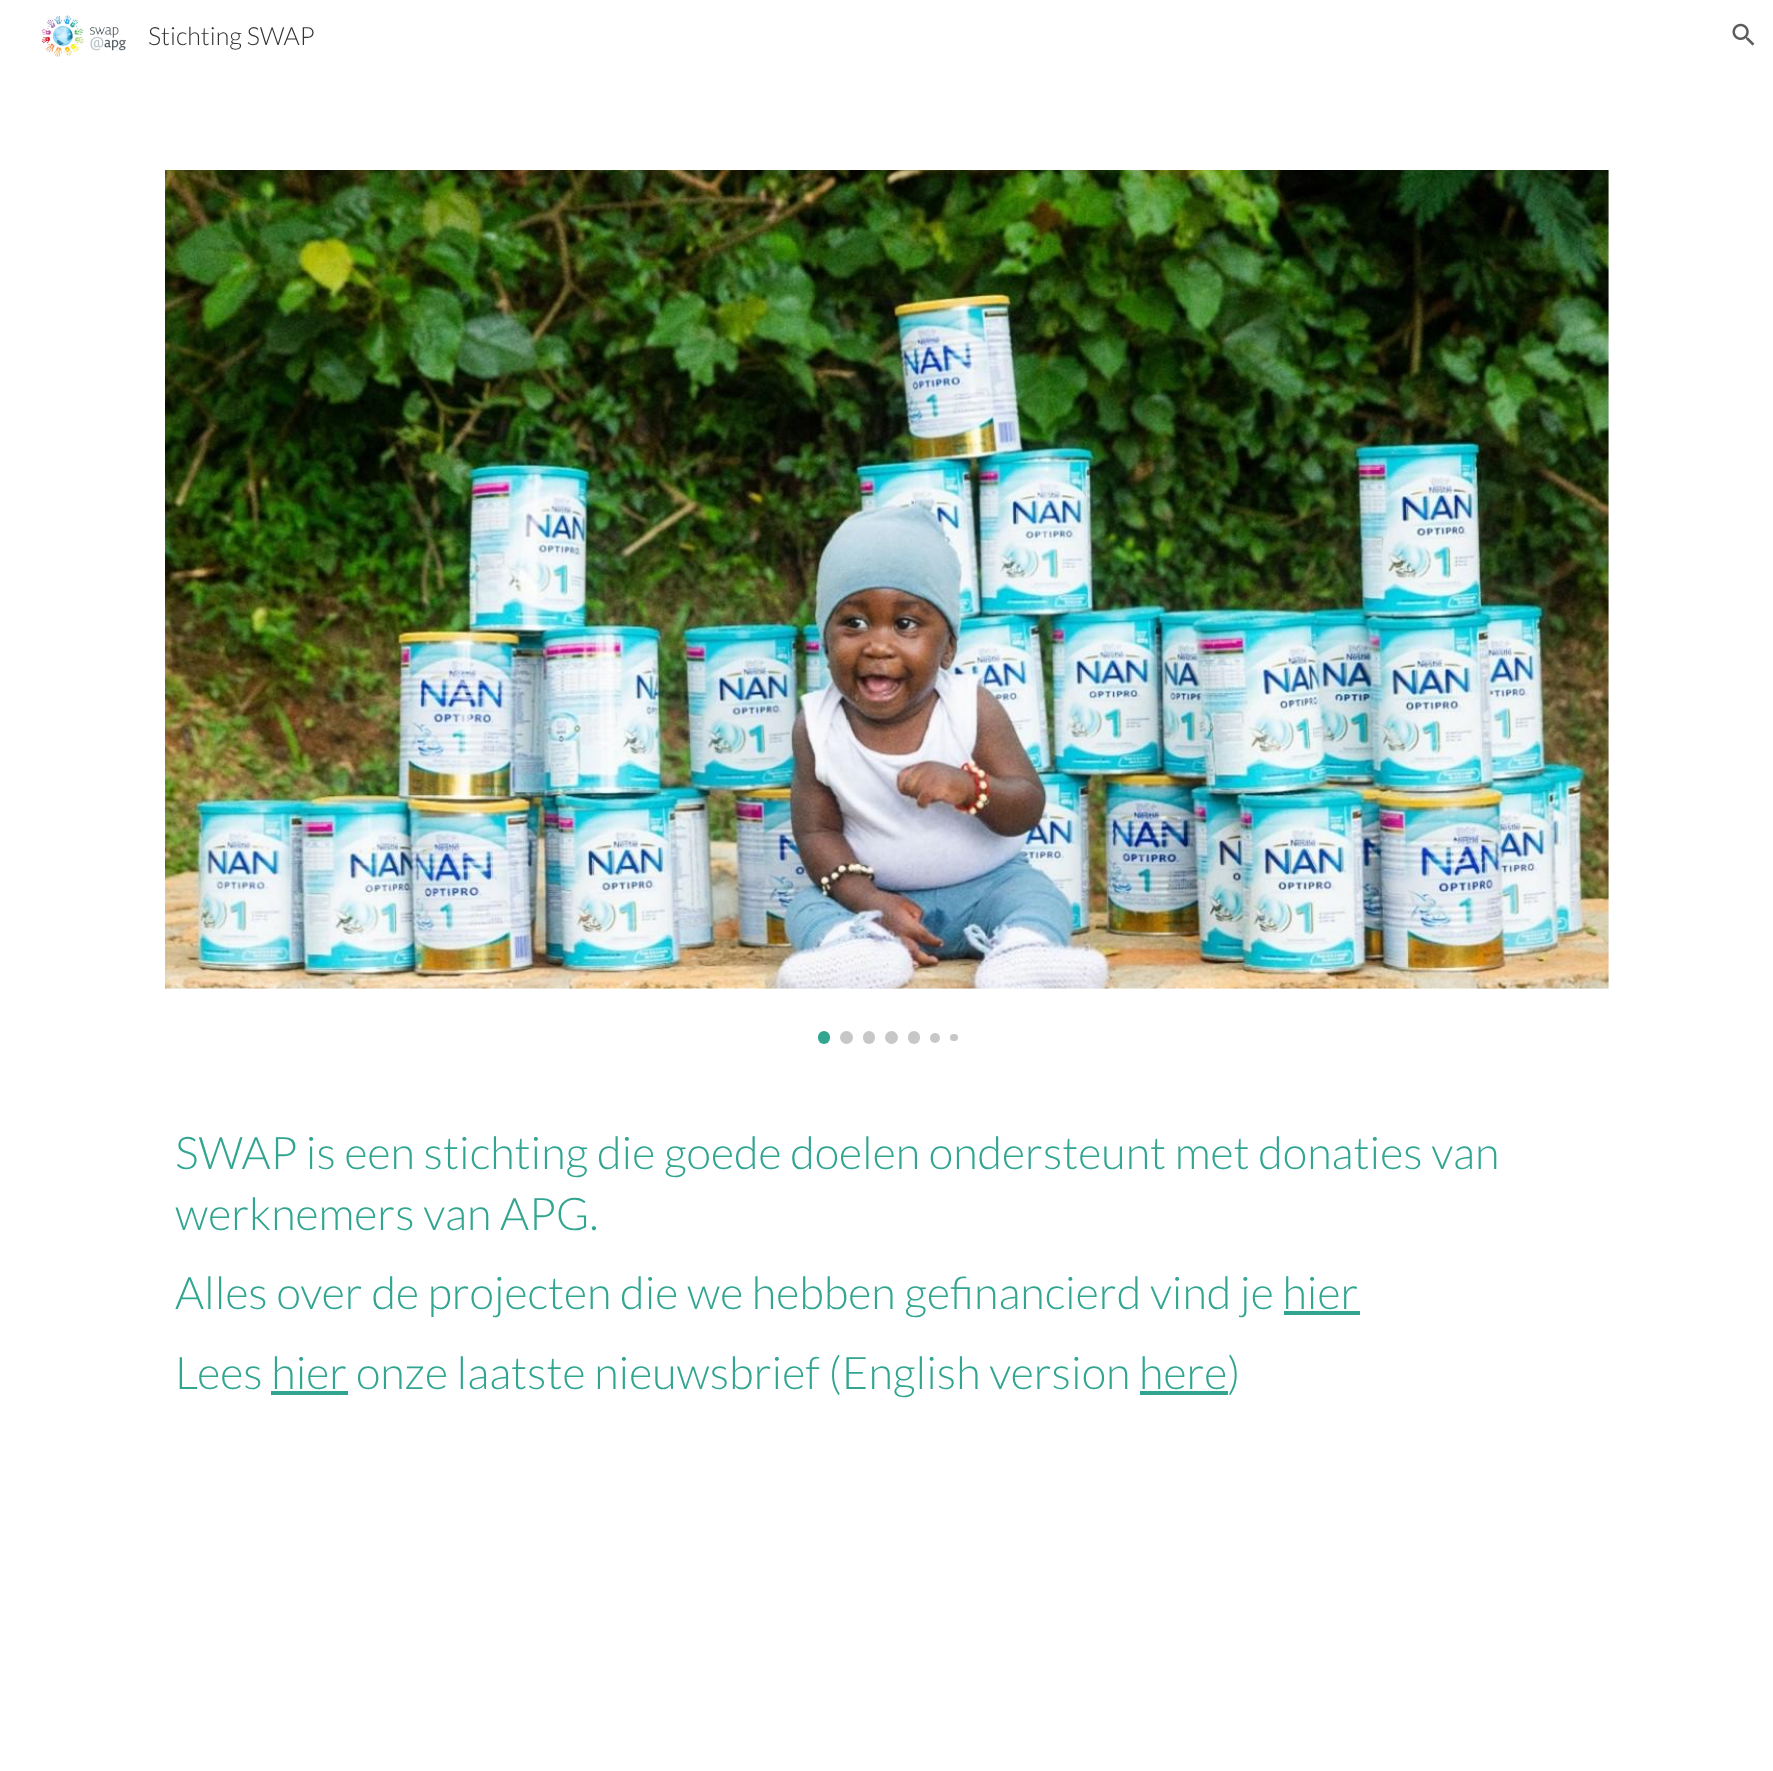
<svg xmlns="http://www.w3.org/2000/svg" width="1773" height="1771">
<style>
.a{font:300 25px Lato;fill:#333}
.b{font:300 45px Lato;fill:#31a590}
</style>
<rect width="100%" height="100%" fill="#fff"/>
<image href="1.png" x="41" y="15" width="85" height="42"/>
<image href="2.png" x="1732" y="23" width="23" height="23"/>
<image href="3.png" x="165" y="170" width="1444" height="819"/>
<rect fill="#31a590" x="818" y="1031" width="12" height="13" rx="6"/>
<circle fill="#c7c7c7" cx="846.5" cy="1037.5" r="6.5"/>
<rect fill="#c7c7c7" x="863" y="1031" width="12" height="13" rx="6"/>
<circle fill="#c7c7c7" cx="891.5" cy="1037.5" r="6.5"/>
<rect fill="#c7c7c7" x="908" y="1031" width="12" height="13" rx="6"/>
<circle fill="#c7c7c7" cx="935" cy="1038" r="5"/>
<rect fill="#c7c7c7" x="950" y="1034" width="8" height="7" rx="3.5"/>
<path fill="#31a590" d="M1284 1311h76v4H1284z"/>
<path fill="#31a590" d="M271 1391h77v4H271z"/>
<path fill="#31a590" d="M1140 1391h88v4H1140z"/>
<text class="a" x="148" y="45">Stichting SWAP</text>
<text class="b" x="175" y="1169">SWAP is een stichting die goede doelen ondersteunt met donaties van</text>
<text class="b" x="175" y="1230">werknemers van APG.</text>
<text class="b" x="175" y="1309">Alles over de projecten die we hebben gefinancierd vind je hier</text>
<text class="b" x="175" y="1389">Lees hier onze laatste nieuwsbrief (English version here</text>
<text class="b" x="1227" y="1389">)</text>
</svg>
